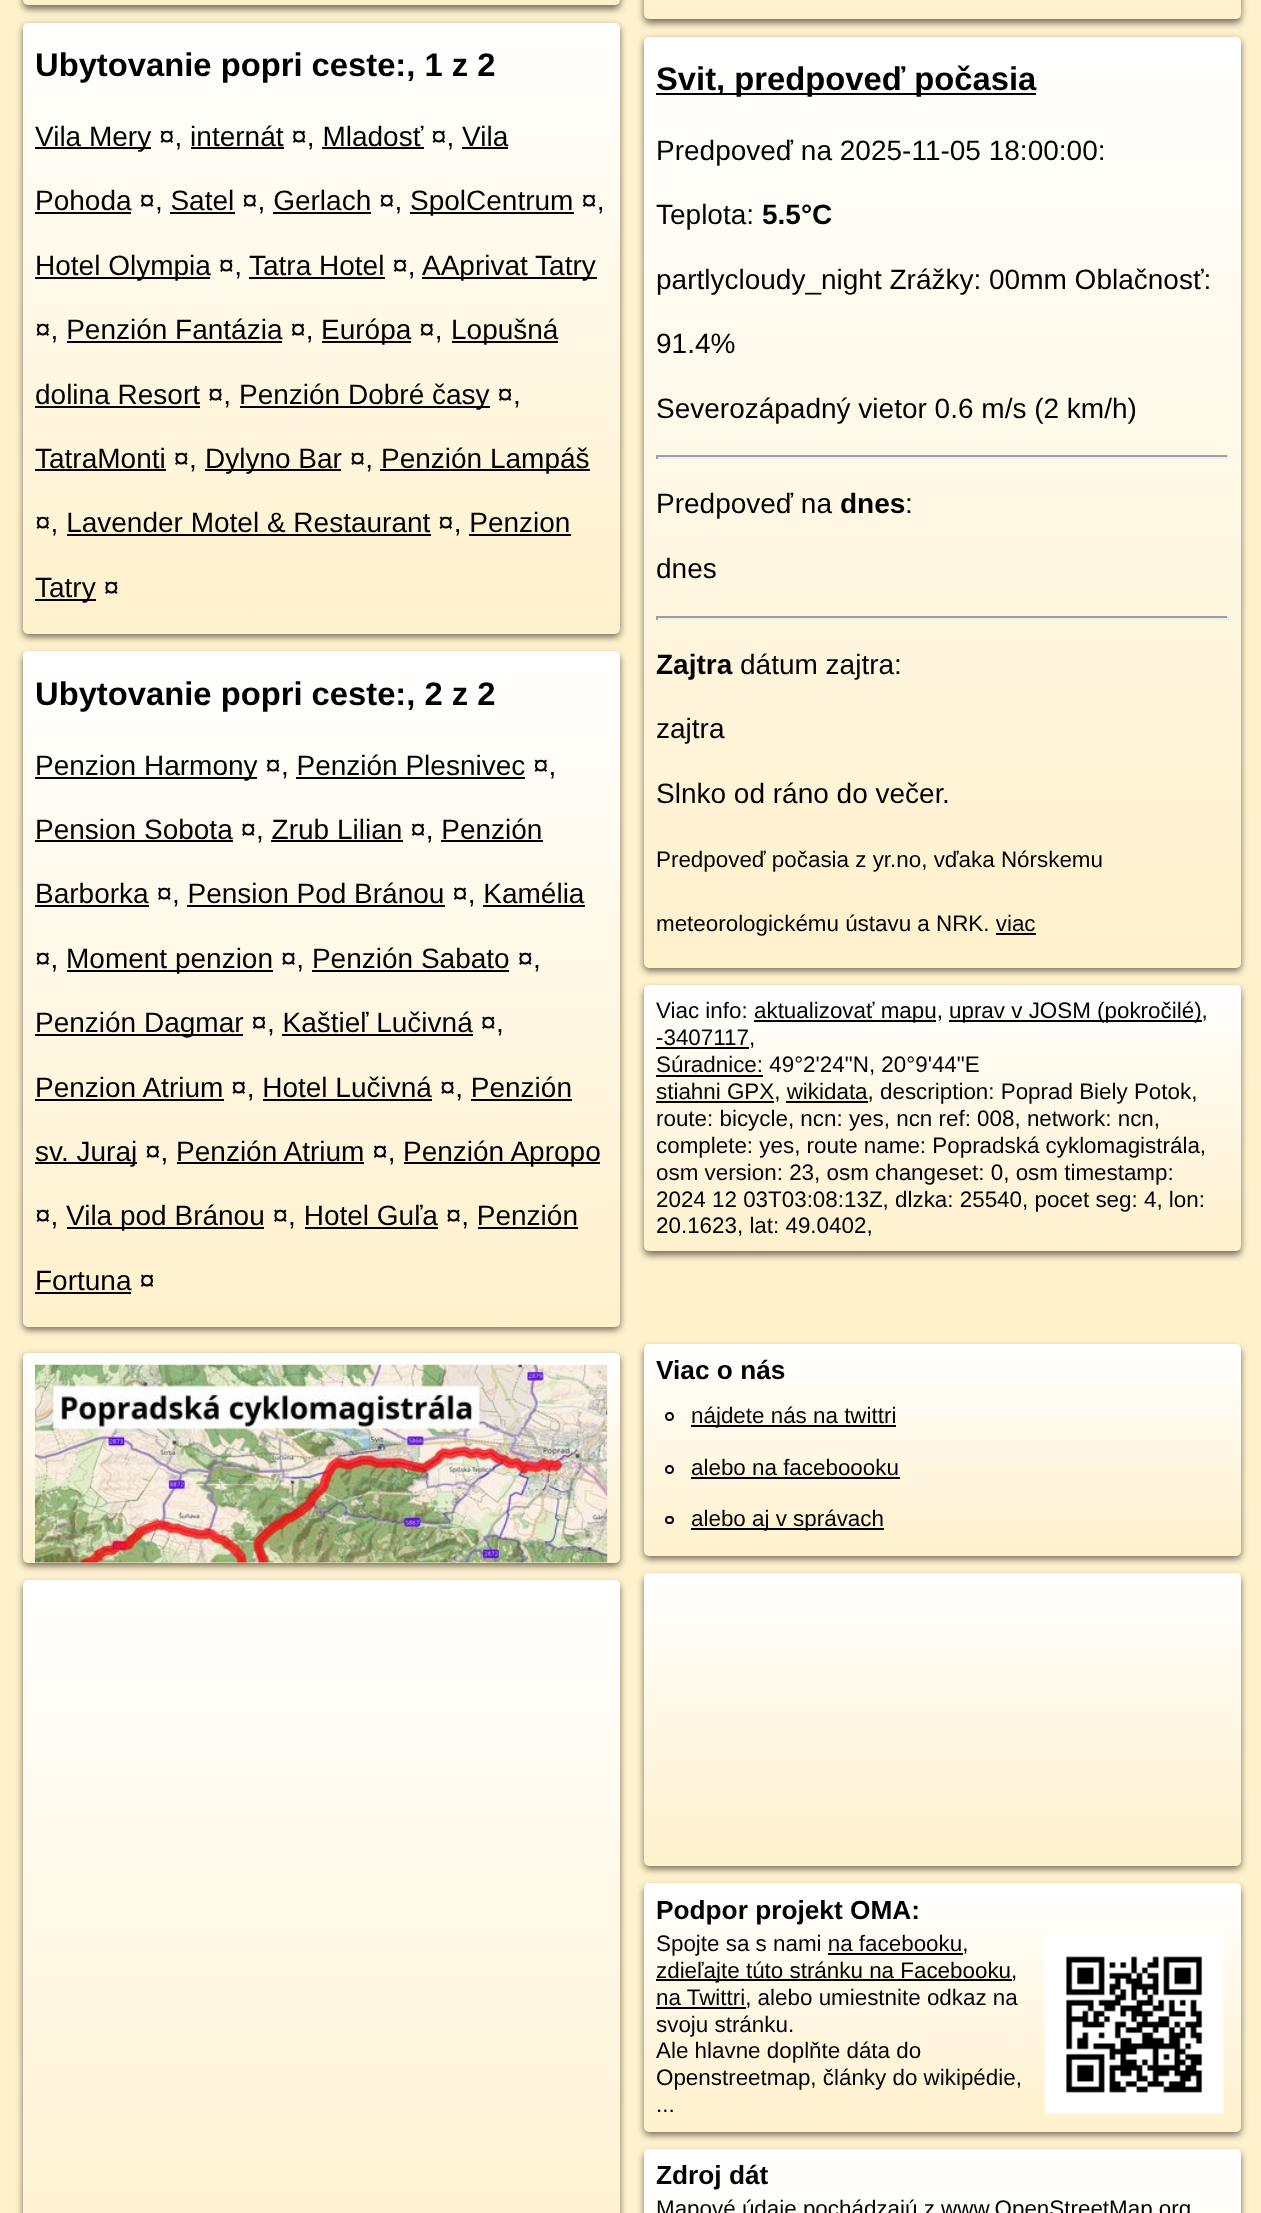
<?xml version="1.0" encoding="UTF-8"?>
<svg xmlns="http://www.w3.org/2000/svg" width="1261" height="2213">
    <defs>
        <filter id="blur1" x="-50%" y="-200%" width="200%" height="500%"><feGaussianBlur stdDeviation="3.5"/></filter>
        <linearGradient id="g1" gradientUnits="userSpaceOnUse" x1="321" y1="-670" x2="321" y2="5.3"><stop offset="0" stop-color="#FFFFFF"/><stop offset="1" stop-color="#FFF1CC"/></linearGradient>
        <linearGradient id="g2" gradientUnits="userSpaceOnUse" x1="942" y1="-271" x2="942" y2="19"><stop offset="0" stop-color="#FFFFFF"/><stop offset="1" stop-color="#FFF1CC"/></linearGradient>
        <linearGradient id="g3" gradientUnits="userSpaceOnUse" x1="321" y1="23" x2="321" y2="634"><stop offset="0" stop-color="#FFFFFF"/><stop offset="1" stop-color="#FFF1CC"/></linearGradient>
        <linearGradient id="g4" gradientUnits="userSpaceOnUse" x1="942" y1="37" x2="942" y2="968"><stop offset="0" stop-color="#FFFFFF"/><stop offset="1" stop-color="#FFF1CC"/></linearGradient>
        <linearGradient id="g5" gradientUnits="userSpaceOnUse" x1="321" y1="651" x2="321" y2="1327"><stop offset="0" stop-color="#FFFFFF"/><stop offset="1" stop-color="#FFF1CC"/></linearGradient>
        <linearGradient id="g6" gradientUnits="userSpaceOnUse" x1="942" y1="985" x2="942" y2="1251"><stop offset="0" stop-color="#FFFFFF"/><stop offset="1" stop-color="#FFF1CC"/></linearGradient>
        <linearGradient id="g7" gradientUnits="userSpaceOnUse" x1="321" y1="1353" x2="321" y2="1563"><stop offset="0" stop-color="#FFFFFF"/><stop offset="1" stop-color="#FFF1CC"/></linearGradient>
        <linearGradient id="g8" gradientUnits="userSpaceOnUse" x1="942" y1="1344" x2="942" y2="1556"><stop offset="0" stop-color="#FFFFFF"/><stop offset="1" stop-color="#FFF1CC"/></linearGradient>
        <linearGradient id="g9" gradientUnits="userSpaceOnUse" x1="321" y1="1580" x2="321" y2="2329"><stop offset="0" stop-color="#FFFFFF"/><stop offset="1" stop-color="#FFF1CC"/></linearGradient>
        <linearGradient id="g10" gradientUnits="userSpaceOnUse" x1="942" y1="1573" x2="942" y2="1866"><stop offset="0" stop-color="#FFFFFF"/><stop offset="1" stop-color="#FFF1CC"/></linearGradient>
        <linearGradient id="g11" gradientUnits="userSpaceOnUse" x1="942" y1="1883" x2="942" y2="2132"><stop offset="0" stop-color="#FFFFFF"/><stop offset="1" stop-color="#FFF1CC"/></linearGradient>
        <linearGradient id="g12" gradientUnits="userSpaceOnUse" x1="942" y1="2149" x2="942" y2="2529"><stop offset="0" stop-color="#FFFFFF"/><stop offset="1" stop-color="#FFF1CC"/></linearGradient>
    </defs>
    <rect width="100%" height="100%" fill="#FFF1CC"/>
    <rect x="23" y="-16" width="597" height="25" rx="5" fill="#000000" fill-opacity="0.55" filter="url(#blur1)"/>
    <rect x="23" y="-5" width="597" height="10" rx="5" fill="url(#g1)"/>
    <rect x="644" y="-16" width="597" height="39" rx="5" fill="#000000" fill-opacity="0.55" filter="url(#blur1)"/>
    <rect x="644" y="-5" width="597" height="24" rx="5" fill="url(#g2)"/>
    <rect x="23" y="26" width="597" height="611" rx="5" fill="#000000" fill-opacity="0.55" filter="url(#blur1)"/>
    <rect x="23" y="23" width="597" height="611" rx="5" fill="url(#g3)"/>
    <text x="35" y="76" font-family="Liberation Sans" font-size="32.75" font-weight="700" fill="#000000">Ubytovanie popri ceste:, 1 z 2</text>
    <rect x="35" y="147" width="116" height="2" fill="#000000"/>
    <text x="35" y="146" font-family="Liberation Sans" font-size="28" fill="#000000">Vila Mery ¤, internát ¤, Mladosť ¤, Vila</text>
    <rect x="191" y="147" width="93" height="2" fill="#000000"/>
    <rect x="322" y="147" width="102" height="2" fill="#000000"/>
    <rect x="35" y="212" width="96" height="2" fill="#000000"/>
    <text x="35" y="210" font-family="Liberation Sans" font-size="28" fill="#000000">Pohoda ¤, Satel ¤, Gerlach ¤,</text>
    <rect x="462" y="147" width="46" height="2" fill="#000000"/>
    <rect x="410" y="212" width="164" height="2" fill="#000000"/>
    <text x="410" y="210" font-family="Liberation Sans" font-size="28" fill="#000000">SpolCentrum ¤,</text>
    <rect x="170" y="212" width="65" height="2" fill="#000000"/>
    <rect x="273" y="212" width="98" height="2" fill="#000000"/>
    <rect x="35" y="277" width="175" height="2" fill="#000000"/>
    <text x="35" y="275" font-family="Liberation Sans" font-size="28" fill="#000000">Hotel Olympia ¤,</text>
    <rect x="249" y="277" width="136" height="2" fill="#000000"/>
    <text x="249" y="275" font-family="Liberation Sans" font-size="28" fill="#000000">Tatra Hotel ¤,</text>
    <rect x="422" y="277" width="175" height="2" fill="#000000"/>
    <text x="422" y="275" font-family="Liberation Sans" font-size="28" fill="#000000">AAprivat Tatry</text>
    <text x="35" y="339" font-family="Liberation Sans" font-size="28" fill="#000000">¤, Penzión Fantázia ¤,</text>
    <rect x="322" y="341" width="89" height="2" fill="#000000"/>
    <text x="321" y="339" font-family="Liberation Sans" font-size="28" fill="#000000">Európa ¤,</text>
    <rect x="452" y="341" width="106" height="2" fill="#000000"/>
    <text x="451" y="339" font-family="Liberation Sans" font-size="28" fill="#000000">Lopušná</text>
    <rect x="67" y="341" width="215" height="2" fill="#000000"/>
    <rect x="35" y="406" width="165" height="2" fill="#000000"/>
    <text x="35" y="404" font-family="Liberation Sans" font-size="28" fill="#000000">dolina Resort ¤,</text>
    <rect x="240" y="406" width="250" height="2" fill="#000000"/>
    <text x="239" y="404" font-family="Liberation Sans" font-size="28" fill="#000000">Penzión Dobré časy ¤,</text>
    <rect x="35" y="469" width="131" height="2" fill="#000000"/>
    <text x="35" y="468" font-family="Liberation Sans" font-size="28" fill="#000000">TatraMonti ¤,</text>
    <rect x="205" y="469" width="136" height="2" fill="#000000"/>
    <text x="205" y="468" font-family="Liberation Sans" font-size="28" fill="#000000">Dylyno Bar ¤,</text>
    <rect x="380" y="469" width="210" height="2" fill="#000000"/>
    <text x="381" y="468" font-family="Liberation Sans" font-size="28" fill="#000000">Penzión Lampáš</text>
    <text x="35" y="532" font-family="Liberation Sans" font-size="28" fill="#000000">¤, Lavender Motel &amp; Restaurant ¤, Penzion</text>
    <rect x="67" y="534" width="364" height="2" fill="#000000"/>
    <rect x="35" y="599" width="61" height="2" fill="#000000"/>
    <text x="35" y="597" font-family="Liberation Sans" font-size="28" fill="#000000">Tatry ¤</text>
    <rect x="469" y="534" width="102" height="2" fill="#000000"/>
    <rect x="644" y="40" width="597" height="931" rx="5" fill="#000000" fill-opacity="0.55" filter="url(#blur1)"/>
    <rect x="644" y="37" width="597" height="931" rx="5" fill="url(#g4)"/>
    <rect x="656" y="93" width="380" height="2" fill="#000000"/>
    <text x="656" y="90" font-family="Liberation Sans" font-size="32.75" font-weight="700" fill="#000000">Svit, predpoveď počasia</text>
    <text x="656" y="160" font-family="Liberation Sans" font-size="28" fill="#000000">Predpoveď na 2025-11-05 18:00:00:</text>
    <text x="656" y="224" font-family="Liberation Sans" font-size="28" fill="#000000">Teplota:</text>
    <text x="762" y="224" font-family="Liberation Sans" font-size="28" font-weight="700" fill="#000000">5.5°C</text>
    <text x="656" y="289" font-family="Liberation Sans" font-size="28" fill="#000000">partlycloudy_night Zrážky: 00mm Oblačnosť:</text>
    <text x="656" y="353" font-family="Liberation Sans" font-size="28" fill="#000000">91.4%</text>
    <text x="656" y="418" font-family="Liberation Sans" font-size="28" fill="#000000">Severozápadný vietor 0.6 m/s (2 km/h)</text>
    <rect x="656" y="455" width="573" height="2" fill="#9F9F9F"/>
    <rect x="1227" y="455" width="2" height="4" fill="#EEEEEE"/>
    <rect x="656" y="457" width="573" height="2" fill="#EEEEEE"/>
    <rect x="656" y="455" width="2" height="4" fill="#9F9F9F"/>
    <text x="656" y="513" font-family="Liberation Sans" font-size="28" fill="#000000">Predpoveď na</text>
    <text x="840" y="513" font-family="Liberation Sans" font-size="28" font-weight="700" fill="#000000">dnes</text>
    <text x="905" y="513" font-family="Liberation Sans" font-size="28" fill="#000000">:</text>
    <text x="656" y="578" font-family="Liberation Sans" font-size="28" fill="#000000">dnes</text>
    <rect x="656" y="616" width="573" height="2" fill="#9F9F9F"/>
    <rect x="1227" y="616" width="2" height="4" fill="#EEEEEE"/>
    <rect x="656" y="618" width="573" height="2" fill="#EEEEEE"/>
    <rect x="656" y="616" width="2" height="4" fill="#9F9F9F"/>
    <text x="656" y="674" font-family="Liberation Sans" font-size="28" font-weight="700" fill="#000000">Zajtra</text>
    <text x="740" y="674" font-family="Liberation Sans" font-size="28" fill="#000000">dátum zajtra:</text>
    <text x="656" y="738" font-family="Liberation Sans" font-size="28" fill="#000000">zajtra</text>
    <text x="656" y="803" font-family="Liberation Sans" font-size="28" fill="#000000">Slnko od ráno do večer</text>
    <text x="942" y="803" font-family="Liberation Sans" font-size="28" fill="#000000">.</text>
    <text x="656" y="867" font-family="Liberation Sans" font-size="22.4" fill="#000000">Predpoveď počasia z yr.no, vďaka Nórskemu</text>
    <text x="656" y="931" font-family="Liberation Sans" font-size="22.4" fill="#000000">meteorologickému ústavu a NRK. viac</text>
    <rect x="996" y="933" width="40" height="2" fill="#000000"/>
    <rect x="23" y="655" width="597" height="675" rx="5" fill="#000000" fill-opacity="0.55" filter="url(#blur1)"/>
    <rect x="23" y="651" width="597" height="676" rx="5" fill="url(#g5)"/>
    <text x="35" y="705" font-family="Liberation Sans" font-size="32.75" font-weight="700" fill="#000000">Ubytovanie popri ceste:, 2 z 2</text>
    <rect x="35" y="777" width="222" height="2" fill="#000000"/>
    <text x="35" y="775" font-family="Liberation Sans" font-size="28" fill="#000000">Penzion Harmony ¤, Penzión Plesnivec ¤,</text>
    <rect x="296" y="777" width="229" height="2" fill="#000000"/>
    <rect x="35" y="840" width="198" height="2" fill="#000000"/>
    <text x="35" y="839" font-family="Liberation Sans" font-size="28" fill="#000000">Pension Sobota ¤, Zrub Lilian ¤, Penzión</text>
    <rect x="271" y="840" width="132" height="2" fill="#000000"/>
    <rect x="35" y="905" width="114" height="2" fill="#000000"/>
    <text x="35" y="903" font-family="Liberation Sans" font-size="28" fill="#000000">Barborka ¤, Pension Pod Bránou ¤, Kamélia</text>
    <rect x="441" y="840" width="102" height="2" fill="#000000"/>
    <rect x="187" y="905" width="258" height="2" fill="#000000"/>
    <rect x="483" y="905" width="102" height="2" fill="#000000"/>
    <text x="35" y="968" font-family="Liberation Sans" font-size="28" fill="#000000">¤,</text>
    <rect x="67" y="970" width="206" height="2" fill="#000000"/>
    <text x="66" y="968" font-family="Liberation Sans" font-size="28" fill="#000000">Moment penzion ¤, Penzión Sabato ¤,</text>
    <rect x="312" y="970" width="197" height="2" fill="#000000"/>
    <rect x="35" y="1034" width="208" height="2" fill="#000000"/>
    <text x="35" y="1032" font-family="Liberation Sans" font-size="28" fill="#000000">Penzión Dagmar ¤, Kaštieľ Lučivná ¤,</text>
    <rect x="282" y="1034" width="191" height="2" fill="#000000"/>
    <rect x="35" y="1099" width="189" height="2" fill="#000000"/>
    <text x="35" y="1097" font-family="Liberation Sans" font-size="28" fill="#000000">Penzion Atrium ¤, Hotel Lučivná ¤, Penzión</text>
    <rect x="263" y="1099" width="169" height="2" fill="#000000"/>
    <rect x="35" y="1162" width="102" height="2" fill="#000000"/>
    <text x="35" y="1161" font-family="Liberation Sans" font-size="28" fill="#000000">sv. Juraj ¤, Penzión Atrium ¤,</text>
    <rect x="471" y="1099" width="101" height="2" fill="#000000"/>
    <rect x="404" y="1162" width="196" height="2" fill="#000000"/>
    <text x="403" y="1161" font-family="Liberation Sans" font-size="28" fill="#000000">Penzión Apropo</text>
    <rect x="177" y="1162" width="187" height="2" fill="#000000"/>
    <text x="35" y="1225" font-family="Liberation Sans" font-size="28" fill="#000000">¤,</text>
    <rect x="67" y="1227" width="197" height="2" fill="#000000"/>
    <text x="66" y="1225" font-family="Liberation Sans" font-size="28" fill="#000000">Vila pod Bránou ¤, Hotel Guľa ¤, Penzión</text>
    <rect x="305" y="1227" width="133" height="2" fill="#000000"/>
    <text x="35" y="1290" font-family="Liberation Sans" font-size="28" fill="#000000">Fortuna ¤</text>
    <rect x="478" y="1227" width="100" height="2" fill="#000000"/>
    <rect x="35" y="1292" width="96" height="2" fill="#000000"/>
    <rect x="644" y="989" width="597" height="266" rx="5" fill="#000000" fill-opacity="0.55" filter="url(#blur1)"/>
    <rect x="644" y="985" width="597" height="266" rx="5" fill="url(#g6)"/>
    <text x="656" y="1018" font-family="Liberation Sans" font-size="22.4" fill="#000000">Viac info:</text>
    <rect x="754" y="1020" width="182" height="2" fill="#000000"/>
    <text x="754" y="1018" font-family="Liberation Sans" font-size="22.4" fill="#000000">aktualizovať mapu,</text>
    <rect x="949" y="1020" width="253" height="2" fill="#000000"/>
    <text x="949" y="1018" font-family="Liberation Sans" font-size="22.4" fill="#000000">uprav v JOSM (pokročilé),</text>
    <rect x="656" y="1047" width="93" height="2" fill="#000000"/>
    <text font-family="Liberation Sans" font-size="22.4" fill="#000000">
        <tspan x="656" y="1045">-3407117,</tspan>
        <tspan x="656" y="1072">Súradnice: 49°2'24"N, 20°9'44"E</tspan>
    </text>
    <rect x="656" y="1075" width="107" height="2" fill="#000000"/>
    <rect x="656" y="1101" width="118" height="2" fill="#000000"/>
    <text x="656" y="1099" font-family="Liberation Sans" font-size="22.4" fill="#000000">stiahni GPX, wikidata, description: Poprad Biely Potok,</text>
    <rect x="786" y="1101" width="82" height="2" fill="#000000"/>
    <text font-family="Liberation Sans" font-size="22.4" fill="#000000">
        <tspan x="656" y="1126">route: bicycle, ncn: yes, ncn ref: 008, network: ncn,</tspan>
        <tspan x="656" y="1153">complete: yes, route name: Popradská cyklomagistrála,</tspan>
        <tspan x="656" y="1180">osm version: 23, osm changeset: 0, osm timestamp:</tspan>
        <tspan x="656" y="1207">2024 12 03T03:08:13Z, dlzka: 25540, pocet seg: 4, lon:</tspan>
        <tspan x="656" y="1233">20.1623, lat: 49.0402,</tspan>
    </text>
    <rect x="23" y="1356" width="597" height="210" rx="5" fill="#000000" fill-opacity="0.55" filter="url(#blur1)"/>
    <rect x="23" y="1353" width="597" height="210" rx="5" fill="url(#g7)"/>
    <image x="35" y="1364" width="573" height="199" href="img_01.png"/>
    <rect x="644" y="1348" width="597" height="211" rx="5" fill="#000000" fill-opacity="0.55" filter="url(#blur1)"/>
    <rect x="644" y="1344" width="597" height="212" rx="5" fill="url(#g8)"/>
    <text x="656" y="1379" font-family="Liberation Sans" font-size="26.25" font-weight="700" fill="#000000">Viac o nás</text>
    <circle cx="669.5" cy="1416.5" r="3.5" fill="none" stroke="#000000" stroke-width="2"/>
    <rect x="691" y="1425" width="205" height="2" fill="#000000"/>
    <text x="691" y="1423" font-family="Liberation Sans" font-size="22.4" fill="#000000">nájdete nás na twittri</text>
    <circle cx="669.5" cy="1469.5" r="3.5" fill="none" stroke="#000000" stroke-width="2"/>
    <text x="691" y="1475" font-family="Liberation Sans" font-size="22.4" fill="#000000">alebo na faceboooku</text>
    <rect x="691" y="1477" width="209" height="2" fill="#000000"/>
    <rect x="666" y="1517" width="7" height="6" rx="3" fill="none" stroke="#000000" stroke-width="2"/>
    <rect x="691" y="1528" width="193" height="2" fill="#000000"/>
    <text x="691" y="1526" font-family="Liberation Sans" font-size="22.4" fill="#000000">alebo aj v správach</text>
    <rect x="23" y="1584" width="597" height="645" rx="5" fill="#000000" fill-opacity="0.55" filter="url(#blur1)"/>
    <rect x="23" y="1580" width="597" height="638" rx="5" fill="url(#g9)"/>
    <rect x="644" y="1577" width="597" height="292" rx="5" fill="#000000" fill-opacity="0.55" filter="url(#blur1)"/>
    <rect x="644" y="1573" width="597" height="293" rx="5" fill="url(#g10)"/>
    <rect x="644" y="1887" width="597" height="248" rx="5" fill="#000000" fill-opacity="0.55" filter="url(#blur1)"/>
    <rect x="644" y="1883" width="597" height="249" rx="5" fill="url(#g11)"/>
    <text x="656" y="1919" font-family="Liberation Sans" font-size="26.25" font-weight="700" fill="#000000">Podpor projekt OMA:</text>
    <text x="656" y="1951" font-family="Liberation Sans" font-size="22.4" fill="#000000">Spojte sa s nami na facebooku,</text>
    <rect x="828" y="1953" width="135" height="2" fill="#000000"/>
    <rect x="656" y="1979" width="356" height="2" fill="#000000"/>
    <text x="656" y="1978" font-family="Liberation Sans" font-size="22.4" fill="#000000">zdieľajte túto stránku na Facebooku,</text>
    <rect x="656" y="2007" width="90" height="2" fill="#000000"/>
    <text font-family="Liberation Sans" font-size="22.4" fill="#000000">
        <tspan x="656" y="2005">na Twittri, alebo umiestnite odkaz na</tspan>
        <tspan x="656" y="2032">svoju stránku.</tspan>
    </text>
    <image x="1044" y="1935" width="180" height="179" href="img_02.png"/>
    <text font-family="Liberation Sans" font-size="22.4" fill="#000000">
        <tspan x="656" y="2058">Ale hlavne doplňte dáta do</tspan>
        <tspan x="656" y="2085">Openstreetmap, články do wikipédie,</tspan>
        <tspan x="656" y="2112">...</tspan>
    </text>
    <rect x="644" y="2153" width="597" height="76" rx="5" fill="#000000" fill-opacity="0.55" filter="url(#blur1)"/>
    <rect x="644" y="2149" width="597" height="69" rx="5" fill="url(#g12)"/>
    <text x="656" y="2184" font-family="Liberation Sans" font-size="26.25" font-weight="700" fill="#000000">Zdroj dát</text>
    <text x="656" y="2216" font-family="Liberation Sans" font-size="22.4" fill="#000000">Mapové údaje pochádzajú z www.OpenStreetMap.org</text>
</svg>
